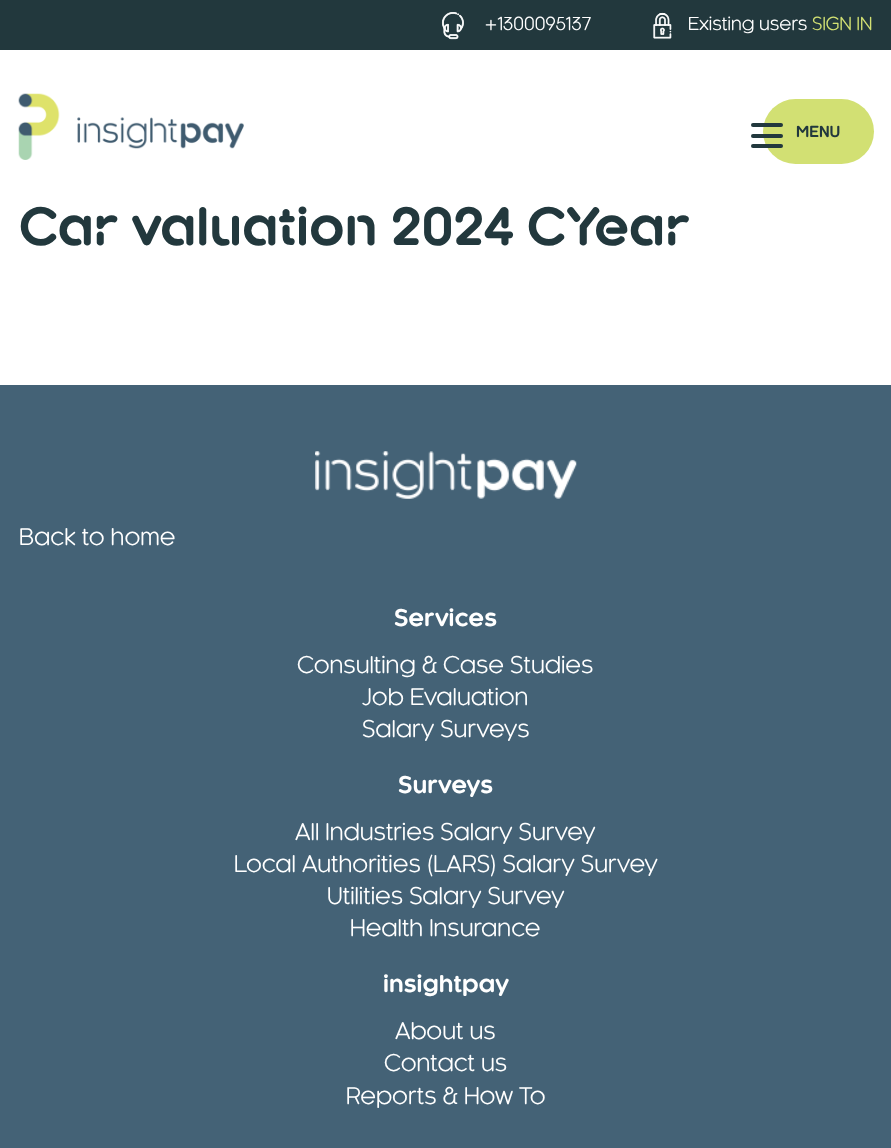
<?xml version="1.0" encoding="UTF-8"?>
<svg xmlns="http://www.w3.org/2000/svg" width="891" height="1148">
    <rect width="100%" height="100%" fill="#FFFFFF"/>
    <rect x="0" y="0" width="891" height="50" fill="#22383D"/>
    <image x="441" y="12" width="23" height="28" href="img_01.png"/>
    <text x="485" y="30" font-family="'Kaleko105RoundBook'" font-size="17.5" fill="#FFFFFF">+1300095137</text>
    <image x="653" y="12" width="19" height="27" href="img_02.png"/>
    <text x="688" y="30" font-family="'Kaleko105RoundBook'" font-size="17.5" fill="#FFFFFF">Existing users</text>
    <text x="812" y="30" font-family="'Kaleko105RoundBook'" font-size="17.5" fill="#D3E173">SIGN IN</text>
    <image x="18" y="93" width="226" height="67" href="img_03.png"/>
    <rect x="763" y="99" width="111" height="65" rx="32.5" fill="#D2E073"/>
    <rect x="751" y="123" width="32" height="4" rx="2" fill="#22383D"/>
    <text x="796" y="137" font-family="'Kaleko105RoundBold'" font-size="15" font-weight="700" fill="#22383D">MENU</text>
    <rect x="751" y="134" width="32" height="4" rx="2" fill="#22383D"/>
    <rect x="751" y="144" width="32" height="4" rx="2" fill="#22383D"/>
    <text x="19" y="245" font-family="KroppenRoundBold" font-size="50" font-weight="700" fill="#22383D">Car valuation 2024 CYear</text>
    <rect x="0" y="385" width="891" height="763" fill="#446276"/>
    <image x="315" y="451" width="262" height="48" href="img_04.png"/>
    <text x="19" y="545" font-family="'Kaleko105RoundBook'" font-size="22.5" fill="#FFFFFF">Back to home</text>
    <text x="394" y="626" font-family="'Kaleko105RoundBold'" font-size="22.5" font-weight="700" fill="#FFFFFF">Services</text>
    <text x="297" y="673" font-family="'Kaleko105RoundBook'" font-size="22.5" fill="#FFFFFF">Consulting &amp; Case Studies</text>
    <text font-family="'Kaleko105RoundBook'" font-size="22.5" fill="#FFFFFF">
        <tspan x="362" y="705">Job Evaluation</tspan>
        <tspan x="362" y="737">Salary Surveys</tspan>
    </text>
    <text x="398" y="793" font-family="'Kaleko105RoundBold'" font-size="22.5" font-weight="700" fill="#FFFFFF">Surveys</text>
    <text x="295" y="840" font-family="'Kaleko105RoundBook'" font-size="22.5" fill="#FFFFFF">All Industries Salary Survey</text>
    <text x="234" y="872" font-family="'Kaleko105RoundBook'" font-size="22.5" fill="#FFFFFF">Local Authorities (LARS) Salary Survey</text>
    <text x="327" y="904" font-family="'Kaleko105RoundBook'" font-size="22.5" fill="#FFFFFF">Utilities Salary Survey</text>
    <text x="350" y="936" font-family="'Kaleko105RoundBook'" font-size="22.5" fill="#FFFFFF">Health Insurance</text>
    <text x="383" y="992" font-family="'Kaleko105RoundBold'" font-size="22.5" font-weight="700" fill="#FFFFFF">insightpay</text>
    <text x="395" y="1039" font-family="'Kaleko105RoundBook'" font-size="22.5" fill="#FFFFFF">About us</text>
    <text x="384" y="1071" font-family="'Kaleko105RoundBook'" font-size="22.5" fill="#FFFFFF">Contact us</text>
    <text x="346" y="1104" font-family="'Kaleko105RoundBook'" font-size="22.5" fill="#FFFFFF">Reports &amp; How To</text>
</svg>
